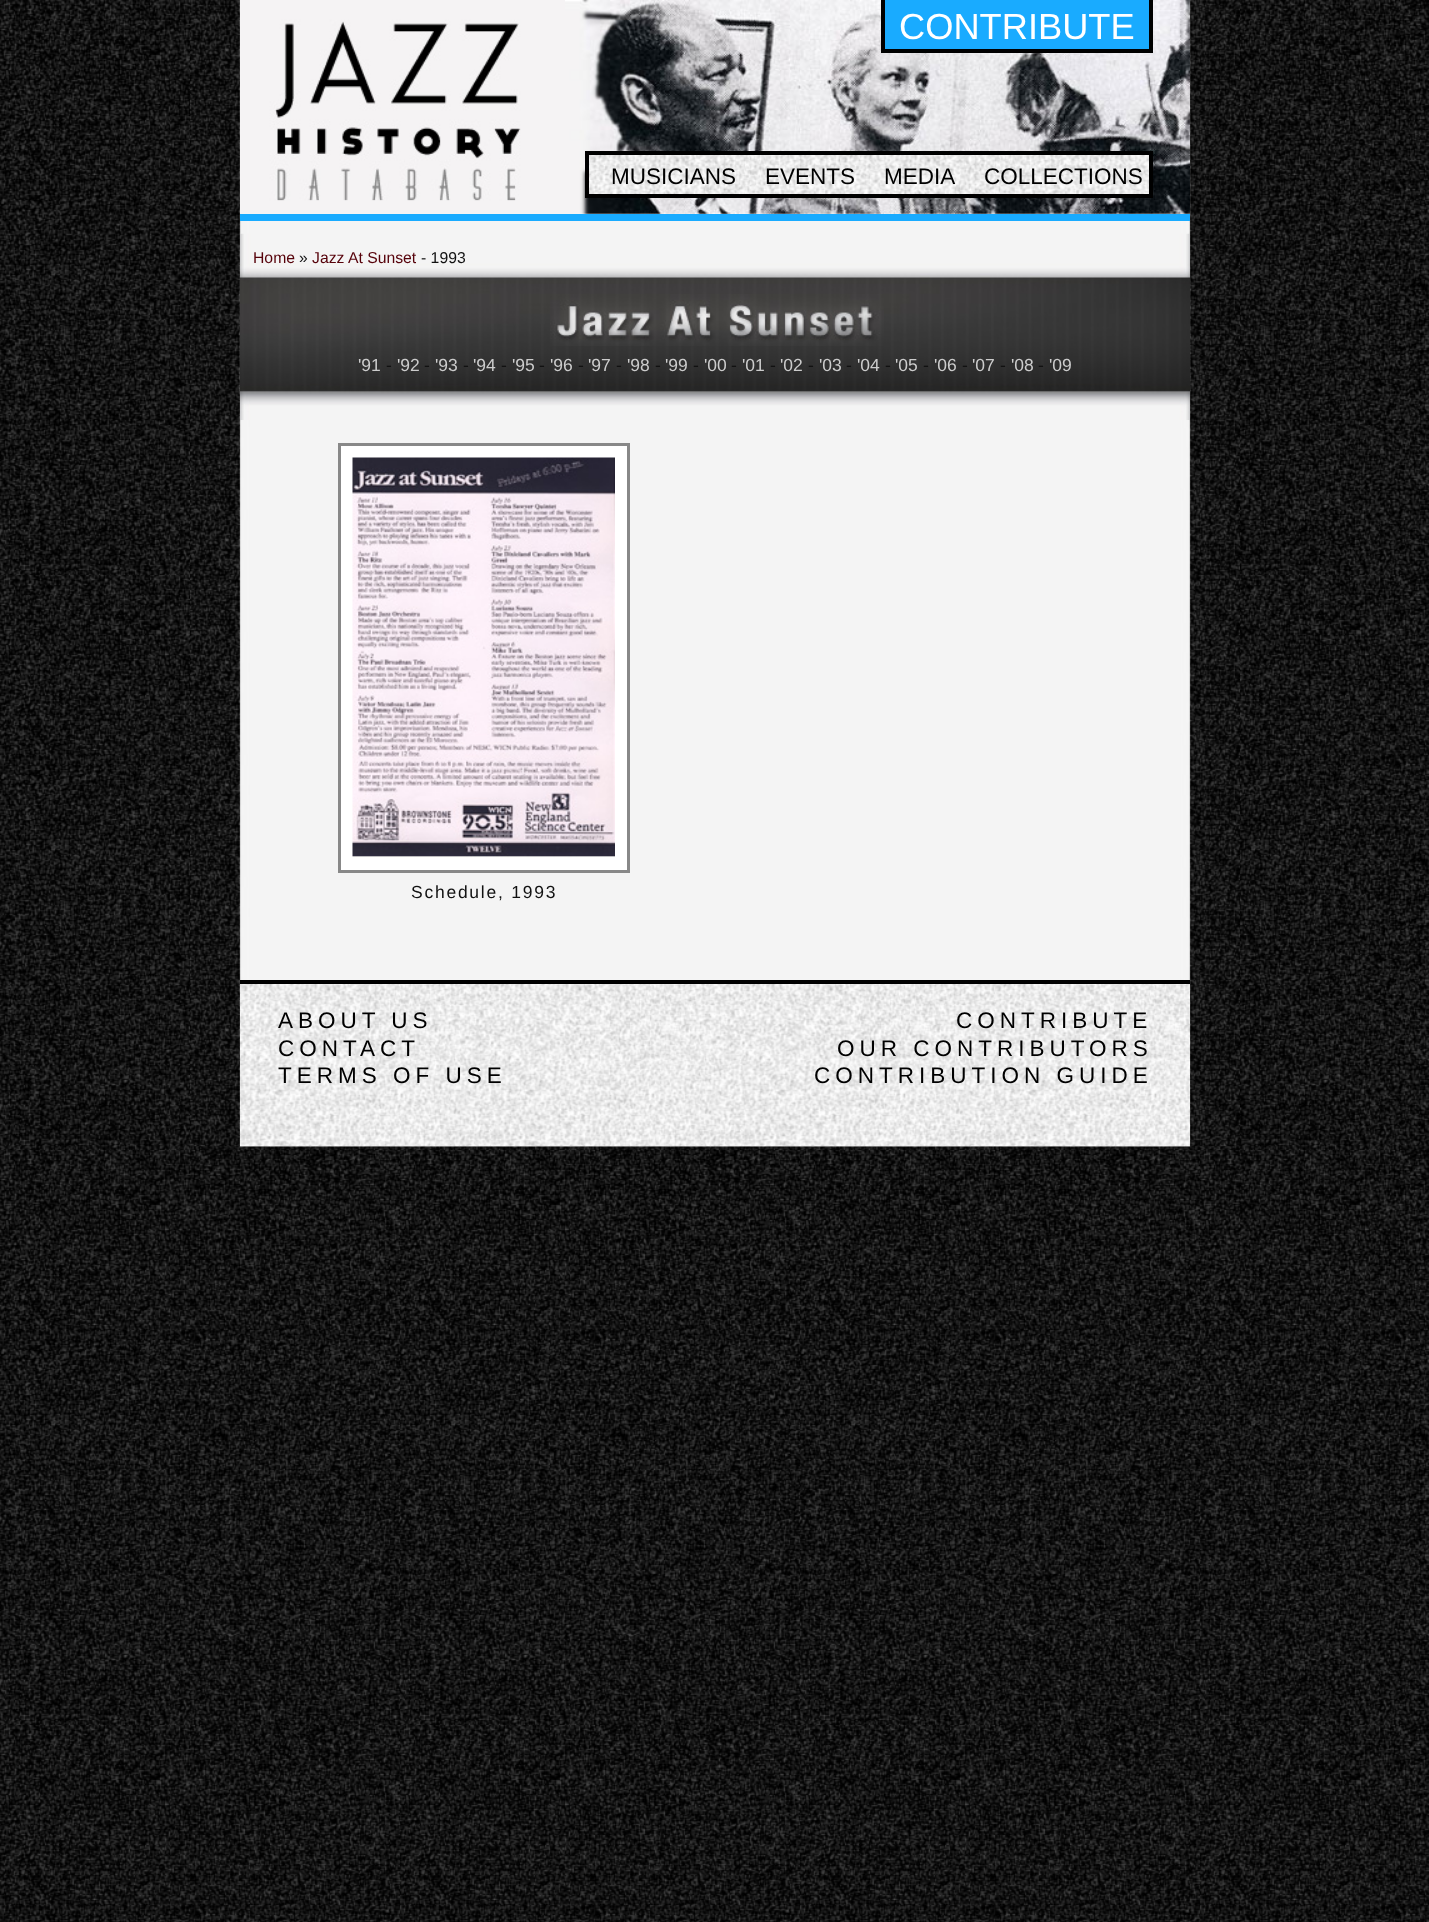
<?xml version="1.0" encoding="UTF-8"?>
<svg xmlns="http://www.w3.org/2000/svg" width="1429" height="1922">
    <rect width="100%" height="100%" fill="#FFFFFF"/>
    <image x="0" y="0" width="1429" height="1922" href="img_01.png"/>
    <image x="190" y="0" width="1050" height="1147" href="img_02.png"/>
    <image x="240" y="0" width="950" height="214" href="img_03.png"/>
    <rect x="240" y="214" width="950" height="7" fill="#19ABFF"/>
    <image x="240" y="0" width="325" height="214" href="img_04.png"/>
    <rect x="885" y="0" width="264" height="49" fill="#19ABFF"/>
    <rect x="1149" y="0" width="4" height="53" fill="#000000"/>
    <rect x="881" y="49" width="272" height="4" fill="#000000"/>
    <rect x="881" y="0" width="4" height="53" fill="#000000"/>
    <text x="899" y="39" font-family="Liberation Sans" font-size="36.25" fill="#FFFFFF">CONTRIBUTE</text>
    <image x="589" y="155" width="560" height="39" href="img_05.png"/>
    <rect x="587" y="153" width="564" height="43" fill="none" stroke="#000000" stroke-width="4"/>
    <text x="611" y="184" font-family="Liberation Sans" font-size="22.5" fill="#000000">MUSICIANS</text>
    <text x="765" y="184" font-family="Liberation Sans" font-size="22.5" fill="#000000">EVENTS</text>
    <text x="884" y="184" font-family="Liberation Sans" font-size="22.5" fill="#000000">MEDIA</text>
    <text x="984" y="184" font-family="Liberation Sans" font-size="22.5" fill="#000000">COLLECTIONS</text>
    <image x="240" y="233" width="950" height="187" href="img_06.png"/>
    <text x="253" y="263" font-family="Liberation Sans" font-size="15.75" fill="#56020A">Home</text>
    <text x="299" y="263" font-family="Liberation Sans" font-size="15.75" fill="#111111">»</text>
    <text x="312" y="263" font-family="Liberation Sans" font-size="15.75" fill="#56020A">Jazz At Sunset</text>
    <text x="421" y="263" font-family="Liberation Sans" font-size="15.75" fill="#111111">- 1993</text>
    <image x="550" y="294" width="334" height="52" href="img_07.png"/>
    <text x="358" y="371" font-family="Liberation Sans" font-size="17.5" fill="#CCCCCC">'91</text>
    <text x="386" y="371" font-family="Liberation Sans" font-size="17.5" fill="#111111">-</text>
    <text x="397" y="371" font-family="Liberation Sans" font-size="17.5" fill="#CCCCCC">'92</text>
    <text x="424" y="371" font-family="Liberation Sans" font-size="17.5" fill="#111111">-</text>
    <text x="435" y="371" font-family="Liberation Sans" font-size="17.5" fill="#CCCCCC">'93</text>
    <text x="463" y="371" font-family="Liberation Sans" font-size="17.5" fill="#111111">-</text>
    <text x="473" y="371" font-family="Liberation Sans" font-size="17.5" fill="#CCCCCC">'94</text>
    <text x="501" y="371" font-family="Liberation Sans" font-size="17.5" fill="#111111">-</text>
    <text x="512" y="371" font-family="Liberation Sans" font-size="17.5" fill="#CCCCCC">'95</text>
    <text x="539" y="371" font-family="Liberation Sans" font-size="17.5" fill="#111111">-</text>
    <text x="550" y="371" font-family="Liberation Sans" font-size="17.5" fill="#CCCCCC">'96</text>
    <text x="578" y="371" font-family="Liberation Sans" font-size="17.5" fill="#111111">-</text>
    <text x="588" y="371" font-family="Liberation Sans" font-size="17.5" fill="#CCCCCC">'97</text>
    <text x="616" y="371" font-family="Liberation Sans" font-size="17.5" fill="#111111">-</text>
    <text x="627" y="371" font-family="Liberation Sans" font-size="17.5" fill="#CCCCCC">'98</text>
    <text x="655" y="371" font-family="Liberation Sans" font-size="17.5" fill="#111111">-</text>
    <text x="665" y="371" font-family="Liberation Sans" font-size="17.5" fill="#CCCCCC">'99</text>
    <text x="693" y="371" font-family="Liberation Sans" font-size="17.5" fill="#111111">-</text>
    <text x="704" y="371" font-family="Liberation Sans" font-size="17.5" fill="#CCCCCC">'00</text>
    <text x="731" y="371" font-family="Liberation Sans" font-size="17.5" fill="#111111">-</text>
    <text x="742" y="371" font-family="Liberation Sans" font-size="17.5" fill="#CCCCCC">'01</text>
    <text x="770" y="371" font-family="Liberation Sans" font-size="17.5" fill="#111111">-</text>
    <text x="780" y="371" font-family="Liberation Sans" font-size="17.5" fill="#CCCCCC">'02</text>
    <text x="808" y="371" font-family="Liberation Sans" font-size="17.5" fill="#111111">-</text>
    <text x="819" y="371" font-family="Liberation Sans" font-size="17.5" fill="#CCCCCC">'03</text>
    <text x="846" y="371" font-family="Liberation Sans" font-size="17.5" fill="#111111">-</text>
    <text x="857" y="371" font-family="Liberation Sans" font-size="17.5" fill="#CCCCCC">'04</text>
    <text x="885" y="371" font-family="Liberation Sans" font-size="17.5" fill="#111111">-</text>
    <text x="895" y="371" font-family="Liberation Sans" font-size="17.5" fill="#CCCCCC">'05</text>
    <text x="923" y="371" font-family="Liberation Sans" font-size="17.5" fill="#111111">-</text>
    <text x="934" y="371" font-family="Liberation Sans" font-size="17.5" fill="#CCCCCC">'06</text>
    <text x="962" y="371" font-family="Liberation Sans" font-size="17.5" fill="#111111">-</text>
    <text x="972" y="371" font-family="Liberation Sans" font-size="17.5" fill="#CCCCCC">'07</text>
    <text x="1000" y="371" font-family="Liberation Sans" font-size="17.5" fill="#111111">-</text>
    <text x="1011" y="371" font-family="Liberation Sans" font-size="17.5" fill="#CCCCCC">'08</text>
    <text x="1038" y="371" font-family="Liberation Sans" font-size="17.5" fill="#111111">-</text>
    <text x="1049" y="371" font-family="Liberation Sans" font-size="17.5" fill="#CCCCCC">'09</text>
    <rect x="339.5" y="444.5" width="289" height="427" fill="#FFFFFF" stroke="#888888" stroke-width="3"/>
    <image x="352" y="457" width="263" height="401" href="img_08.png"/>
    <text x="411" y="898" font-family="Liberation Sans" font-size="17.5" letter-spacing="1.75" fill="#111111">Schedule, 1993</text>
    <image x="240" y="984" width="950" height="163" href="img_09.png"/>
    <rect x="240" y="980" width="950" height="4" fill="#000000"/>
    <text font-family="Liberation Sans" font-size="22.5" letter-spacing="5" fill="#000000">
        <tspan x="278" y="1028">ABOUT US</tspan>
        <tspan x="278" y="1056">CONTACT</tspan>
        <tspan x="278" y="1083">TERMS OF USE</tspan>
    </text>
    <text x="956" y="1028" font-family="Liberation Sans" font-size="22.5" letter-spacing="5" fill="#000000">CONTRIBUTE</text>
    <text x="837" y="1056" font-family="Liberation Sans" font-size="22.5" letter-spacing="5" fill="#000000">OUR CONTRIBUTORS</text>
    <text x="814" y="1083" font-family="Liberation Sans" font-size="22.5" letter-spacing="5" fill="#000000">CONTRIBUTION GUIDE</text>
</svg>
